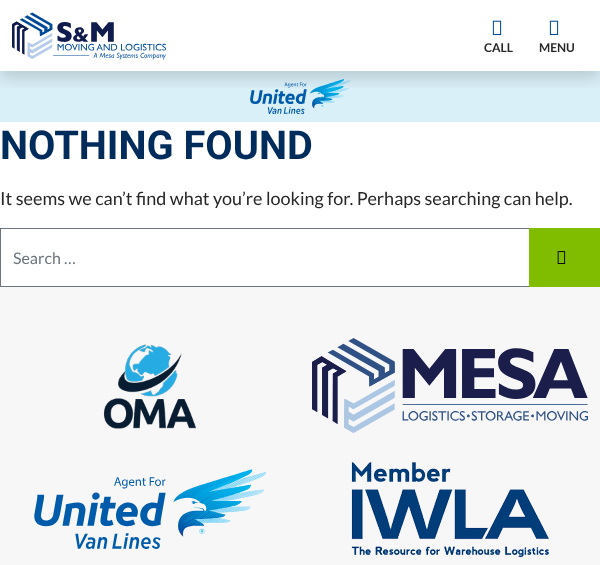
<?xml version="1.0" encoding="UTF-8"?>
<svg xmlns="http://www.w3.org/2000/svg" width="600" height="565">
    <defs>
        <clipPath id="clip1"><rect x="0" y="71" width="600" height="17"/></clipPath>
        <filter id="blur1" x="-50%" y="-200%" width="200%" height="500%"><feGaussianBlur stdDeviation="8"/></filter>
    </defs>
    <rect width="100%" height="100%" fill="#FFFFFF"/>
    <rect x="0" y="71" width="600" height="51" fill="#DAF0F9"/>
    <image x="250" y="79" width="100" height="35" href="img_03.png"/>
    <g clip-path="url(#clip1)">
        <rect x="0" y="8" width="600" height="71" fill="#000000" fill-opacity="0.15" filter="url(#blur1)"/>
    </g>
    <image x="12" y="12" width="154" height="48" href="img_01.png"/>
    <image x="492" y="20" width="10" height="15" href="img_02.png"/>
    <text x="484" y="52" font-family="Lato" font-size="12" font-weight="700" fill="#272727">CALL</text>
    <image x="549" y="20" width="10" height="15" href="img_02.png"/>
    <text x="539" y="52" font-family="Lato" font-size="12" font-weight="700" fill="#272727">MENU</text>
    <text x="0" y="159" font-family="Roboto" font-size="39.75" font-weight="700" fill="#002C5B">NOTHING FOUND</text>
    <text x="0" y="205" font-family="Lato" font-size="18" fill="#272727">It seems we can’t find what you’re looking for. Perhaps searching can help.</text>
    <rect x="0.5" y="228.5" width="529" height="58" fill="none" stroke="#6C757D"/>
    <text x="13" y="264" font-family="Lato" font-size="16" fill="#6C757D">Search …</text>
    <rect x="529" y="228" width="71" height="59" fill="#80BC00"/>
    <image x="557" y="251" width="9" height="13" href="img_04.png"/>
    <rect x="0" y="287" width="600" height="278" fill="#F7F7F7"/>
    <image x="103" y="344" width="93" height="85" href="img_05.png"/>
    <image x="312" y="338" width="276" height="95" href="img_06.png"/>
    <image x="34" y="469" width="232" height="80" href="img_07.png"/>
    <image x="351" y="462" width="198" height="96" href="img_08.png"/>
</svg>
